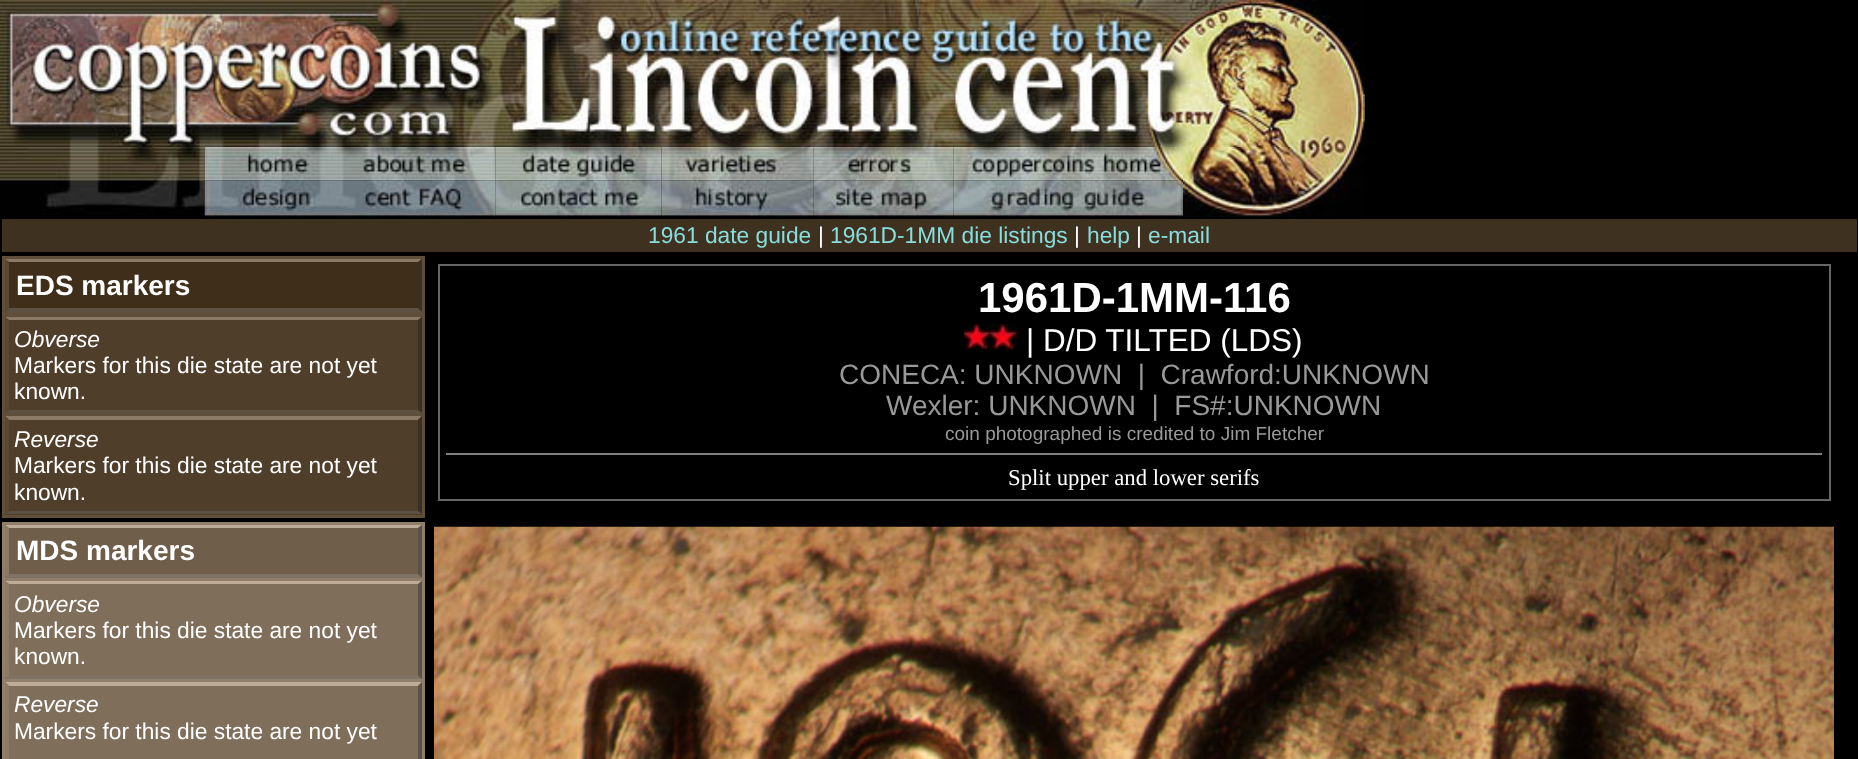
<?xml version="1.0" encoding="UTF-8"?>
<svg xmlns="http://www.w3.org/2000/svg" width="1858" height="759">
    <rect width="100%" height="100%" fill="#000000"/>
    <image x="0" y="0" width="1365" height="147" href="img_01.png"/>
    <image x="0" y="147" width="205" height="68" href="img_02.png"/>
    <image x="204" y="147" width="132" height="34" href="img_03.png"/>
    <image x="336" y="147" width="160" height="34" href="img_04.png"/>
    <image x="495" y="147" width="167" height="34" href="img_05.png"/>
    <image x="661" y="147" width="153" height="34" href="img_06.png"/>
    <image x="813" y="147" width="141" height="34" href="img_07.png"/>
    <image x="953" y="147" width="230" height="34" href="img_08.png"/>
    <image x="1183" y="147" width="181" height="70" href="img_09.png"/>
    <image x="204" y="180" width="132" height="37" href="img_10.png"/>
    <image x="336" y="180" width="160" height="37" href="img_11.png"/>
    <image x="495" y="180" width="167" height="37" href="img_12.png"/>
    <image x="661" y="180" width="153" height="37" href="img_13.png"/>
    <image x="813" y="180" width="141" height="37" href="img_14.png"/>
    <image x="953" y="180" width="230" height="37" href="img_15.png"/>
    <rect x="2" y="219" width="1855" height="33" fill="#3F3120"/>
    <text x="648" y="243" font-family="Liberation Sans" font-size="22.75" fill="#88DDDD">1961 date guide</text>
    <text x="818" y="243" font-family="Liberation Sans" font-size="22.75" fill="#FFFFFF">|</text>
    <text x="830" y="243" font-family="Liberation Sans" font-size="22.75" fill="#88DDDD">1961D-1MM die listings</text>
    <text x="1074" y="243" font-family="Liberation Sans" font-size="22.75" fill="#FFFFFF">|</text>
    <text x="1087" y="243" font-family="Liberation Sans" font-size="22.75" fill="#88DDDD">help</text>
    <text x="1136" y="243" font-family="Liberation Sans" font-size="22.75" fill="#FFFFFF">|</text>
    <text x="1148" y="243" font-family="Liberation Sans" font-size="22.75" fill="#88DDDD">e-mail</text>
    <rect x="2" y="256" width="423" height="262" fill="#5F4E3A"/>
    <rect x="5" y="259" width="417" height="53" fill="#3F2E1A"/>
    <path d="M 5 259 H 422 L 418 262 H 9 Z" fill="#8B7A66"/>
    <path d="M 422 259 V 312 L 418 308 V 262 Z" fill="#3B3023"/>
    <path d="M 422 312 H 5 L 9 308 H 418 Z" fill="#5D5144"/>
    <path d="M 5 312 V 259 L 9 262 V 308 Z" fill="#594834"/>
    <text x="16" y="295" font-family="Liberation Sans" font-size="28" font-weight="700" fill="#FFFFFF">EDS markers</text>
    <rect x="5" y="317" width="417" height="96" fill="#4F3E2A"/>
    <path d="M 5 317 H 422 L 418 320 H 9 Z" fill="#8B7A66"/>
    <path d="M 422 317 V 413 L 418 410 V 320 Z" fill="#3B3023"/>
    <path d="M 422 413 H 5 L 9 410 H 418 Z" fill="#5D5144"/>
    <path d="M 5 413 V 317 L 9 320 V 410 Z" fill="#594834"/>
    <text x="14" y="347" font-family="Liberation Sans" font-size="22.75" font-style="italic" fill="#FFFFFF">Obverse</text>
    <text font-family="Liberation Sans" font-size="22.75" fill="#FFFFFF">
        <tspan x="14" y="373">Markers for this die state are not yet</tspan>
        <tspan x="14" y="399">known.</tspan>
    </text>
    <rect x="5" y="417" width="417" height="98" fill="#4F3E2A"/>
    <path d="M 5 416 H 422 L 418 420 H 9 Z" fill="#8B7A66"/>
    <path d="M 422 416 V 514 L 418 511 V 420 Z" fill="#3B3023"/>
    <path d="M 422 514 H 5 L 9 511 H 418 Z" fill="#5D5144"/>
    <path d="M 5 514 V 416 L 9 420 V 511 Z" fill="#594834"/>
    <text x="14" y="447" font-family="Liberation Sans" font-size="22.75" font-style="italic" fill="#FFFFFF">Reverse</text>
    <text font-family="Liberation Sans" font-size="22.75" fill="#FFFFFF">
        <tspan x="14" y="473">Markers for this die state are not yet</tspan>
        <tspan x="14" y="500">known.</tspan>
    </text>
    <rect x="2" y="522" width="423" height="237" fill="#8F7E6A"/>
    <rect x="5" y="525" width="417" height="53" fill="#6F5E4A"/>
    <path d="M 5 525 H 422 L 418 528 H 9 Z" fill="#BDAC98"/>
    <path d="M 422 525 V 578 L 418 574 V 528 Z" fill="#5D5144"/>
    <path d="M 422 578 H 5 L 9 574 H 418 Z" fill="#7E7365"/>
    <path d="M 5 578 V 525 L 9 528 V 574 Z" fill="#8B7A66"/>
    <text x="16" y="560" font-family="Liberation Sans" font-size="28" font-weight="700" fill="#FFFFFF">MDS markers</text>
    <rect x="5" y="581" width="417" height="98" fill="#7F6E5A"/>
    <path d="M 5 581 H 422 L 418 584 H 9 Z" fill="#BDAC98"/>
    <path d="M 422 581 V 679 L 418 676 V 584 Z" fill="#5D5144"/>
    <path d="M 422 679 H 5 L 9 676 H 418 Z" fill="#7E7365"/>
    <path d="M 5 679 V 581 L 9 584 V 676 Z" fill="#8B7A66"/>
    <text x="14" y="612" font-family="Liberation Sans" font-size="22.75" font-style="italic" fill="#FFFFFF">Obverse</text>
    <text font-family="Liberation Sans" font-size="22.75" fill="#FFFFFF">
        <tspan x="14" y="638">Markers for this die state are not yet</tspan>
        <tspan x="14" y="664">known.</tspan>
    </text>
    <rect x="6" y="683" width="415" height="76" fill="#7F6E5A"/>
    <path d="M 5 682 H 422 L 418 686 H 9 Z" fill="#BDAC98"/>
    <path d="M 422 682 V 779 L 418 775 V 686 Z" fill="#5D5144"/>
    <path d="M 5 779 V 682 L 9 686 V 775 Z" fill="#8B7A66"/>
    <text x="14" y="712" font-family="Liberation Sans" font-size="22.75" font-style="italic" fill="#FFFFFF">Reverse</text>
    <text x="14" y="739" font-family="Liberation Sans" font-size="22.75" fill="#FFFFFF">Markers for this die state are not yet</text>
    <rect x="439" y="265" width="1391" height="235" fill="none" stroke="#666666" stroke-width="2"/>
    <text x="978" y="312" font-family="Liberation Sans" font-size="42" font-weight="700" fill="#FFFFFF">1961D-1MM-116</text>
    <image x="964" y="323" width="53" height="27" href="img_16.png"/>
    <text x="1026" y="351" font-family="Liberation Sans" font-size="31.5" fill="#FFFFFF">| D/D TILTED (LDS)</text>
    <text x="839" y="384" font-family="Liberation Sans" font-size="28" fill="#999999" xml:space="preserve">CONECA: UNKNOWN  |  Crawford:UNKNOWN</text>
    <text x="886" y="415" font-family="Liberation Sans" font-size="28" fill="#999999" xml:space="preserve">Wexler: UNKNOWN  |  FS#:UNKNOWN</text>
    <text x="945" y="440" font-family="Liberation Sans" font-size="19" fill="#999999">coin photographed is credited to Jim Fletcher</text>
    <rect x="446" y="453" width="1376" height="2" fill="#808080"/>
    <text x="1008" y="485" font-family="Liberation Serif" font-size="22.75" fill="#FFFFFF">Split upper and lower serifs</text>
    <image x="434" y="526" width="1400" height="233" href="img_17.png"/>
</svg>
